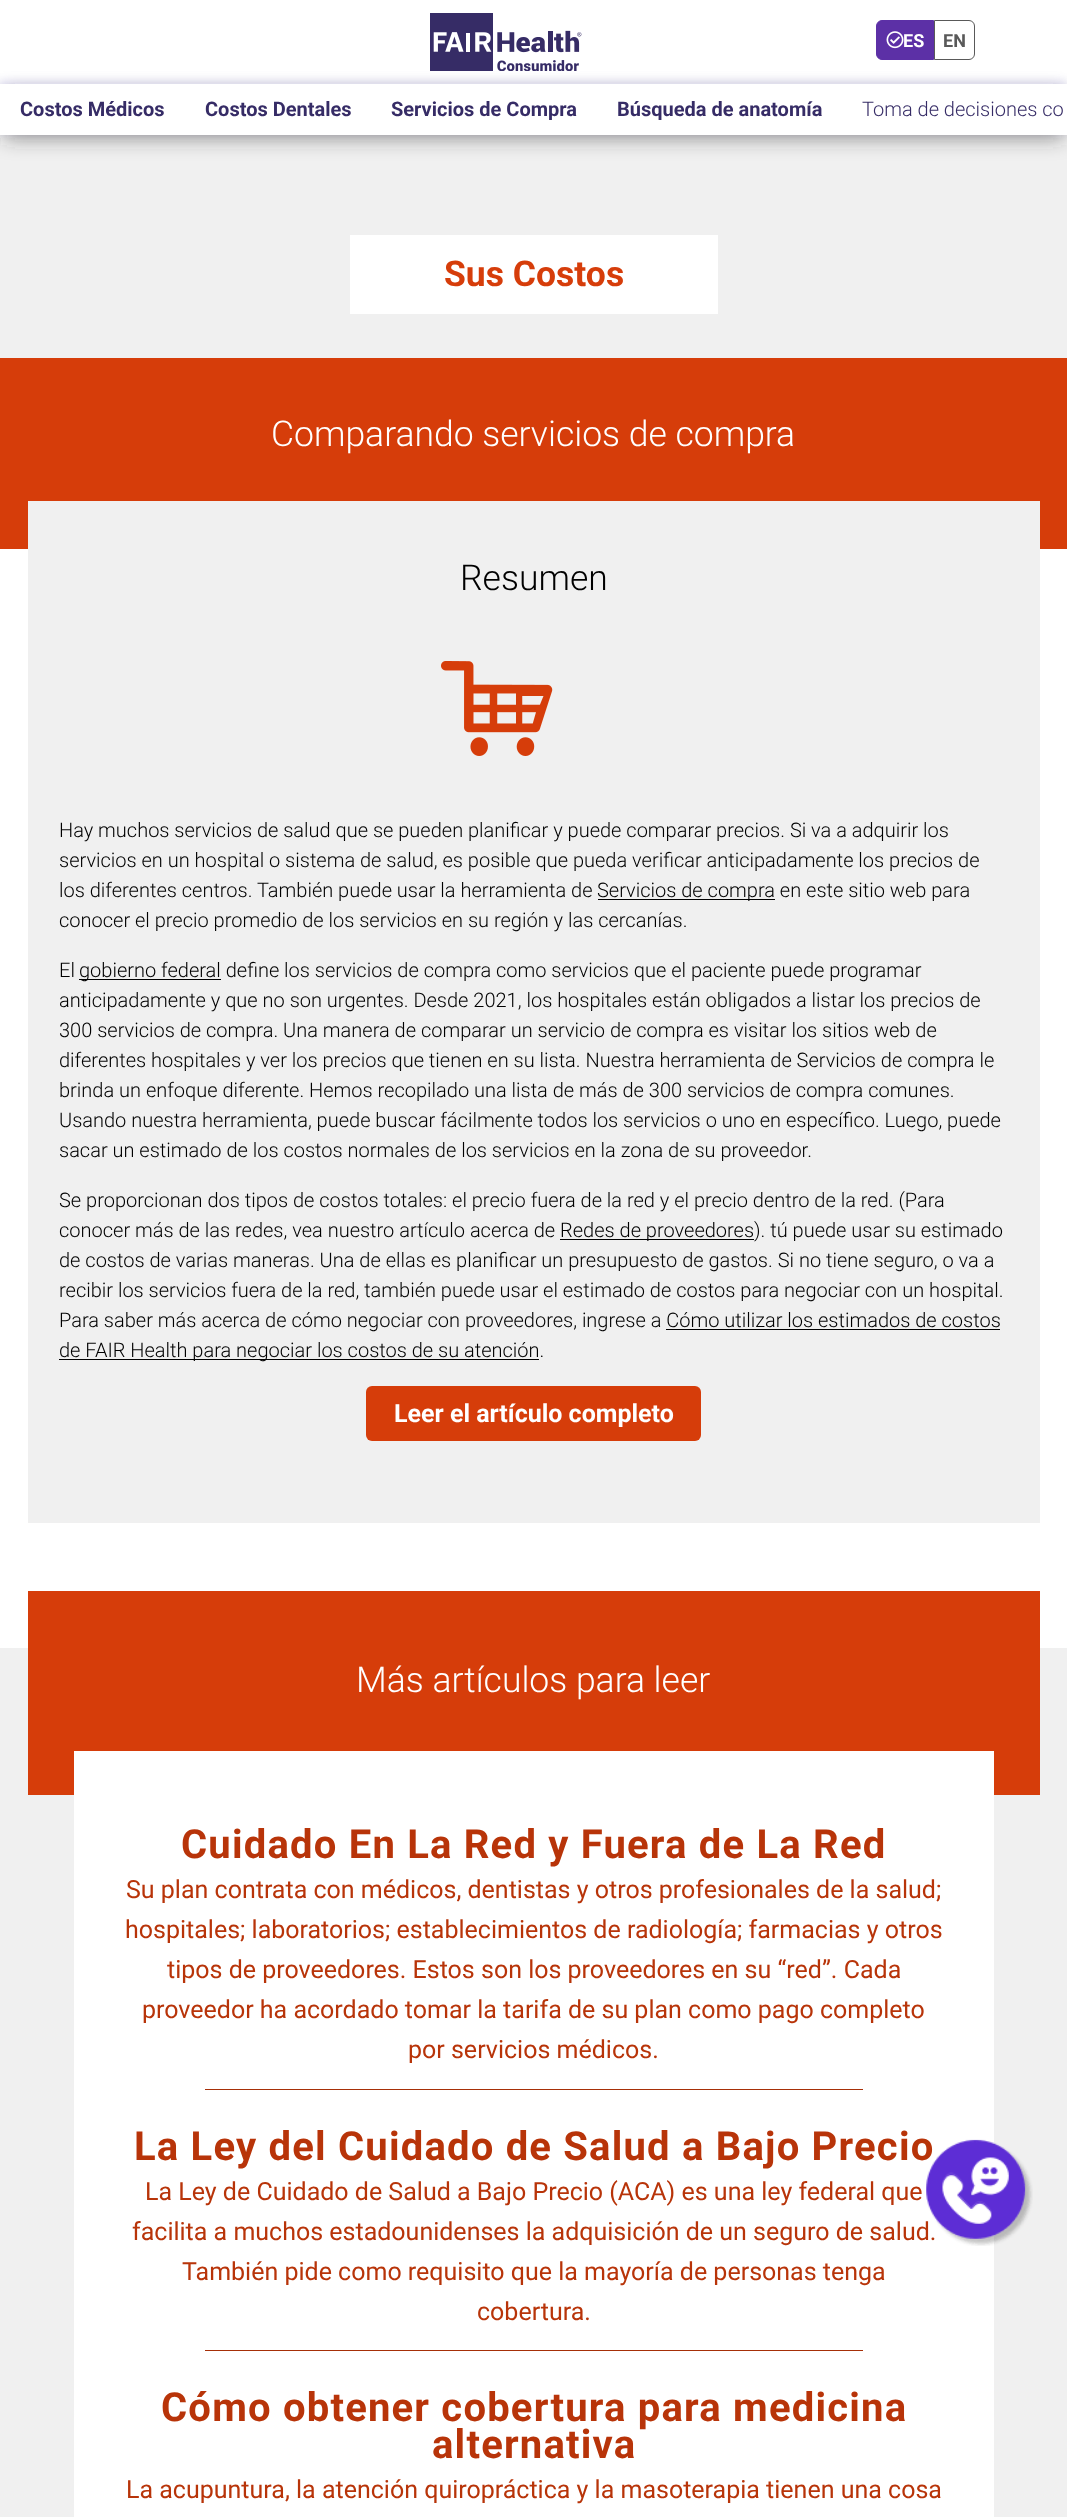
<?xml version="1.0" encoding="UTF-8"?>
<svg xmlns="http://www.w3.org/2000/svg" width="1067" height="2517">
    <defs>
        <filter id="blur1" x="-50%" y="-200%" width="200%" height="500%"><feGaussianBlur stdDeviation="4"/></filter>
        <filter id="blur2" x="-50%" y="-200%" width="200%" height="500%"><feGaussianBlur stdDeviation="10"/></filter>
    </defs>
    <rect width="100%" height="100%" fill="#F0F0F0"/>
    <rect x="0" y="0" width="1067" height="84" fill="#FFFFFF"/>
    <image x="430" y="13" width="152" height="58" href="img_01.png"/>
    <path d="M 882 20.5 H 933.5 V 59.5 H 882 C 879 59.5 876.5 57 876.5 54 V 26 C 876.5 23 879 20.5 882 20.5 Z" fill="#5C30A6" stroke="#5C30A6"/>
    <image x="886" y="31" width="18" height="18" href="img_02.png"/>
    <text x="903" y="47" font-family="Roboto" font-size="18" font-weight="700" fill="#FFFFFF">ES</text>
    <path d="M 934.5 20.5 H 969 C 972 20.5 974.5 23 974.5 26 V 54 C 974.5 57 972 59.5 969 59.5 H 934.5 Z" fill="none" stroke="#595959"/>
    <text x="943" y="47" font-family="Roboto" font-size="18" font-weight="700" fill="#595959">EN</text>
    <rect x="-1" y="81" width="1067" height="52" fill="#E5E3F7" filter="url(#blur1)"/>
    <rect x="4" y="94" width="1060" height="44" fill="#333333" fill-opacity="0.5" filter="url(#blur2)"/>
    <rect x="0" y="84" width="1067" height="51" fill="#FFFFFF"/>
    <text x="20" y="116" font-family="Roboto" font-size="20" font-weight="700" fill="#362C66">Costos Médicos</text>
    <text x="205" y="116" font-family="Roboto" font-size="20" font-weight="700" fill="#362C66">Costos Dentales</text>
    <text x="391" y="116" font-family="Roboto" font-size="20" font-weight="700" fill="#362C66">Servicios de Compra</text>
    <text x="617" y="116" font-family="Roboto" font-size="20" font-weight="700" fill="#362C66">Búsqueda de anatomía</text>
    <text x="862" y="116" font-family="Roboto" font-size="20" font-weight="300" fill="#362C66">Toma de decisiones co</text>
    <rect x="350" y="235" width="368" height="79" fill="#FFFFFF"/>
    <text x="444" y="286" font-family="Roboto" font-size="35.5" font-weight="700" fill="#D63D0A">Sus Costos</text>
    <rect x="0" y="358" width="1067" height="191" fill="#D63D0A"/>
    <text x="271" y="446" font-family="Roboto" font-size="35.5" font-weight="300" fill="#FFFFFF">Comparando servicios de compra</text>
    <rect x="0" y="549" width="1067" height="1099" fill="#FFFFFF"/>
    <rect x="28" y="501" width="1012" height="1022" fill="#F0F0F0"/>
    <text x="460" y="590" font-family="Roboto" font-size="35.5" font-weight="300" fill="#000000">Resumen</text>
    <image x="441" y="661" width="112" height="95" href="img_03.png"/>
    <text font-family="Roboto" font-size="20" font-weight="300" fill="#000000">
        <tspan x="59" y="837">Hay muchos servicios de salud que se pueden planificar y puede comparar precios. Si va a adquirir los</tspan>
        <tspan x="59" y="867">servicios en un hospital o sistema de salud, es posible que pueda verificar anticipadamente los precios de</tspan>
        <tspan x="59" y="897">los diferentes centros.</tspan>
    </text>
    <text x="257" y="897" font-family="Roboto" font-size="20" font-weight="300" fill="#000000">También puede usar la herramienta de</text>
    <rect x="598" y="899" width="177" height="1" fill="#000000"/>
    <text x="597" y="897" font-family="Roboto" font-size="20" font-weight="300" fill="#000000">Servicios de compra en este sitio web para</text>
    <text x="59" y="927" font-family="Roboto" font-size="20" font-weight="300" fill="#000000">conocer el precio promedio de los servicios en su región y las cercanías.</text>
    <text x="59" y="977" font-family="Roboto" font-size="20" font-weight="300" fill="#000000">El</text>
    <rect x="79" y="979" width="142" height="1" fill="#000000"/>
    <text x="79" y="977" font-family="Roboto" font-size="20" font-weight="300" fill="#000000">gobierno federal define los servicios de compra como servicios que el paciente puede programar</text>
    <text font-family="Roboto" font-size="20" font-weight="300" fill="#000000">
        <tspan x="59" y="1007">anticipadamente y que no son urgentes. Desde 2021, los hospitales están obligados a listar los precios de</tspan>
        <tspan x="59" y="1037">300 servicios de compra. Una manera de comparar un servicio de compra es visitar los sitios web de</tspan>
        <tspan x="59" y="1067">diferentes hospitales y ver los precios que tienen en su lista. Nuestra herramienta de Servicios de compra le</tspan>
        <tspan x="59" y="1097">brinda un enfoque diferente. Hemos recopilado una lista de más de 300 servicios de compra comunes.</tspan>
        <tspan x="59" y="1127">Usando nuestra herramienta, puede buscar fácilmente todos los servicios o uno en específico. Luego, puede</tspan>
        <tspan x="59" y="1157">sacar un estimado de los costos normales de los servicios en la zona de su proveedor.</tspan>
    </text>
    <text font-family="Roboto" font-size="20" font-weight="300" fill="#000000">
        <tspan x="59" y="1207">Se proporcionan dos tipos de costos totales: el precio fuera de la red y el precio dentro de la red. (Para</tspan>
        <tspan x="59" y="1237">conocer más de las redes, vea nuestro artículo acerca de</tspan>
    </text>
    <rect x="560" y="1239" width="194" height="1" fill="#000000"/>
    <text x="560" y="1237" font-family="Roboto" font-size="20" font-weight="300" fill="#000000">Redes de proveedores). tú puede usar su estimado</text>
    <text font-family="Roboto" font-size="20" font-weight="300" fill="#000000">
        <tspan x="59" y="1267">de costos de varias maneras. Una de ellas es planificar un presupuesto de gastos. Si no tiene seguro, o va a</tspan>
        <tspan x="59" y="1297">recibir los servicios fuera de la red, también puede usar el estimado de costos para negociar con un hospital.</tspan>
        <tspan x="59" y="1327">Para saber más acerca de cómo negociar con proveedores, ingrese a Cómo utilizar los estimados de costos</tspan>
    </text>
    <rect x="59" y="1359" width="480" height="1" fill="#000000"/>
    <text x="59" y="1357" font-family="Roboto" font-size="20" font-weight="300" fill="#000000">de FAIR Health para negociar los costos de su atención.</text>
    <rect x="666" y="1329" width="334" height="1" fill="#000000"/>
    <rect x="366" y="1386" width="335" height="55" rx="6" fill="#D63D0A"/>
    <text x="394" y="1422" font-family="Roboto" font-size="25" font-weight="700" fill="#FFFFFF">Leer el artículo completo</text>
    <rect x="28" y="1591" width="1012" height="204" fill="#D63D0A"/>
    <text x="356" y="1692" font-family="Roboto" font-size="35.5" font-weight="300" fill="#FFFFFF">Más artículos para leer</text>
    <rect x="74" y="1751" width="920" height="766" fill="#FFFFFF"/>
    <text x="181" y="1858" font-family="Roboto" font-size="40" font-weight="700" letter-spacing="1.2" fill="#B83409">Cuidado En La Red y Fuera de La Red</text>
    <text x="126" y="1898" font-family="Roboto" font-size="25" fill="#B83409">Su plan contrata con médicos, dentistas y otros profesionales de la salud;</text>
    <text x="125" y="1938" font-family="Roboto" font-size="25" fill="#B83409">hospitales; laboratorios; establecimientos de radiología; farmacias y otros</text>
    <text x="167" y="1978" font-family="Roboto" font-size="25" fill="#B83409">tipos de proveedores. Estos son los proveedores en su “red”. Cada</text>
    <text x="142" y="2018" font-family="Roboto" font-size="25" fill="#B83409">proveedor ha acordado tomar la tarifa de su plan como pago completo</text>
    <text x="408" y="2058" font-family="Roboto" font-size="25" fill="#B83409">por servicios médicos.</text>
    <rect x="205" y="2089" width="658" height="1" fill="#A62F08"/>
    <text x="134" y="2160" font-family="Roboto" font-size="40" font-weight="700" letter-spacing="1.2" fill="#B83409">La Ley del Cuidado de Salud a Bajo Precio</text>
    <text x="145" y="2200" font-family="Roboto" font-size="25" fill="#B83409">La Ley de Cuidado de Salud a Bajo Precio (ACA) es una ley federal que</text>
    <text x="132" y="2240" font-family="Roboto" font-size="25" fill="#B83409">facilita a muchos estadounidenses la adquisición de un seguro de salud.</text>
    <text x="182" y="2280" font-family="Roboto" font-size="25" fill="#B83409">También pide como requisito que la mayoría de personas tenga</text>
    <text x="477" y="2320" font-family="Roboto" font-size="25" fill="#B83409">cobertura.</text>
    <rect x="205" y="2350" width="658" height="1" fill="#A62F08"/>
    <text x="161" y="2421" font-family="Roboto" font-size="40" font-weight="700" letter-spacing="1.2" fill="#B83409">Cómo obtener cobertura para medicina</text>
    <text x="432" y="2458" font-family="Roboto" font-size="40" font-weight="700" letter-spacing="1.2" fill="#B83409">alternativa</text>
    <text x="126" y="2498" font-family="Roboto" font-size="25" fill="#B83409">La acupuntura, la atención quiropráctica y la masoterapia tienen una cosa</text>
    <image x="926" y="2139" width="107" height="107" href="img_04.png"/>
</svg>
